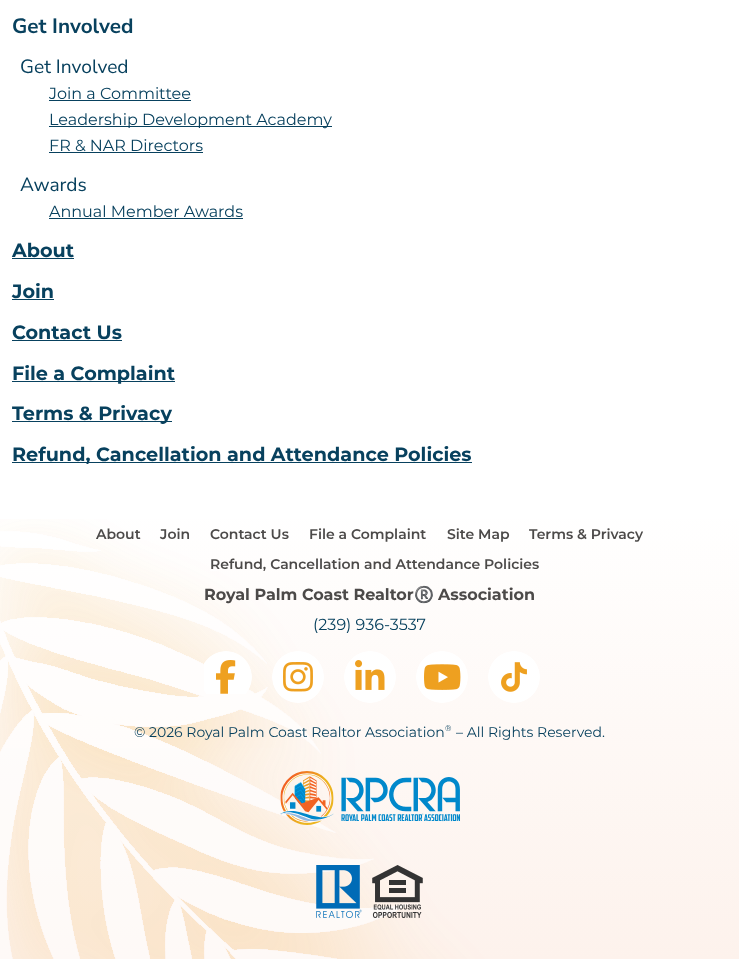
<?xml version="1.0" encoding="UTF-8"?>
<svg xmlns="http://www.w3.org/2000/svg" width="739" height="959">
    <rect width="100%" height="100%" fill="#FFFFFF"/>
    <text x="12" y="33" font-family="Nunito Sans" font-size="20.75" font-weight="700" fill="#08415E">Get Involved</text>
    <text x="20" y="73" font-family="Nunito Sans" font-size="19.2" fill="#08415E">Get Involved</text>
    <text x="49" y="99" font-family="Montserrat" font-size="16" fill="#08415E">Join a Committee</text>
    <rect x="49" y="100" width="142" height="1" fill="#08415E"/>
    <rect x="49" y="126" width="283" height="1" fill="#08415E"/>
    <text font-family="Montserrat" font-size="16" fill="#08415E">
        <tspan x="49" y="125">Leadership Development Academy</tspan>
        <tspan x="49" y="151">FR &amp; NAR Directors</tspan>
    </text>
    <rect x="49" y="152" width="154" height="1" fill="#08415E"/>
    <text x="20" y="191" font-family="Nunito Sans" font-size="19.2" fill="#08415E">Awards</text>
    <text x="49" y="217" font-family="Montserrat" font-size="16" fill="#08415E">Annual Member Awards</text>
    <rect x="49" y="218" width="194" height="1" fill="#08415E"/>
    <text x="12" y="257" font-family="Montserrat" font-size="19.2" font-weight="700" fill="#08415E">About</text>
    <rect x="12" y="258" width="62" height="1" fill="#08415E"/>
    <text x="12" y="298" font-family="Montserrat" font-size="19.2" font-weight="700" fill="#08415E">Join</text>
    <rect x="12" y="299" width="42" height="1" fill="#08415E"/>
    <text x="12" y="339" font-family="Montserrat" font-size="19.2" font-weight="700" fill="#08415E">Contact Us</text>
    <rect x="12" y="340" width="110" height="1" fill="#08415E"/>
    <rect x="12" y="381" width="163" height="1" fill="#08415E"/>
    <text x="12" y="380" font-family="Montserrat" font-size="19.2" font-weight="700" fill="#08415E">File a Complaint</text>
    <rect x="12" y="421" width="160" height="1" fill="#08415E"/>
    <text x="12" y="420" font-family="Montserrat" font-size="19.2" font-weight="700" fill="#08415E">Terms &amp; Privacy</text>
    <rect x="12" y="462" width="460" height="1" fill="#08415E"/>
    <text x="12" y="461" font-family="Montserrat" font-size="19.2" font-weight="700" fill="#08415E">Refund, Cancellation and Attendance Policies</text>
    <image x="0" y="519" width="739" height="440" href="img_01.png"/>
    <text x="96" y="539" font-family="Montserrat" font-size="14" font-weight="600" fill="#4C4A49">About</text>
    <text x="160" y="539" font-family="Montserrat" font-size="14" font-weight="600" fill="#4C4A49">Join</text>
    <text x="210" y="539" font-family="Montserrat" font-size="14" font-weight="600" fill="#4C4A49">Contact Us</text>
    <text x="309" y="539" font-family="Montserrat" font-size="14" font-weight="600" fill="#4C4A49">File a Complaint</text>
    <text x="447" y="539" font-family="Montserrat" font-size="14" font-weight="600" fill="#4C4A49">Site Map</text>
    <text x="529" y="539" font-family="Montserrat" font-size="14" font-weight="600" fill="#4C4A49">Terms &amp; Privacy</text>
    <rect x="210" y="570" width="7" height="1" fill="#FFFEFE"/>
    <text x="210" y="569" font-family="Montserrat" font-size="14" font-weight="600" fill="#4C4A49">Refund, Cancellation and Attendance Policies</text>
    <text x="204" y="600" font-family="Montserrat" font-size="16" font-weight="700" fill="#4C4A49">Royal Palm Coast Realtor</text>
    <text x="414" y="600" font-family="Noto Color Emoji" font-size="16" font-weight="700" fill="#4C4A49">®️</text>
    <text x="438" y="600" font-family="Montserrat" font-size="16" font-weight="700" fill="#4C4A49">Association</text>
    <text x="313" y="630" font-family="Montserrat" font-size="16" fill="#08415E">(239) 936-3537</text>
    <image x="204" y="651" width="48" height="43" href="img_02.png"/>
    <image x="272" y="651" width="52" height="52" href="img_03.png"/>
    <image x="344" y="651" width="52" height="52" href="img_04.png"/>
    <image x="416" y="651" width="52" height="52" href="img_05.png"/>
    <image x="488" y="651" width="52" height="52" href="img_06.png"/>
    <text x="134" y="737" font-family="Montserrat" font-size="14" fill="#08415E">© 2026 Royal Palm Coast Realtor Association</text>
    <text x="445" y="731" font-family="Montserrat" font-size="8" fill="#08415E">®</text>
    <text x="456" y="737" font-family="Montserrat" font-size="14" fill="#08415E">– All Rights Reserved.</text>
    <image x="280" y="771" width="180" height="54" href="img_07.png"/>
    <image x="316" y="865" width="46" height="53" href="img_08.png"/>
    <image x="372" y="865" width="51" height="53" href="img_09.png"/>
</svg>
